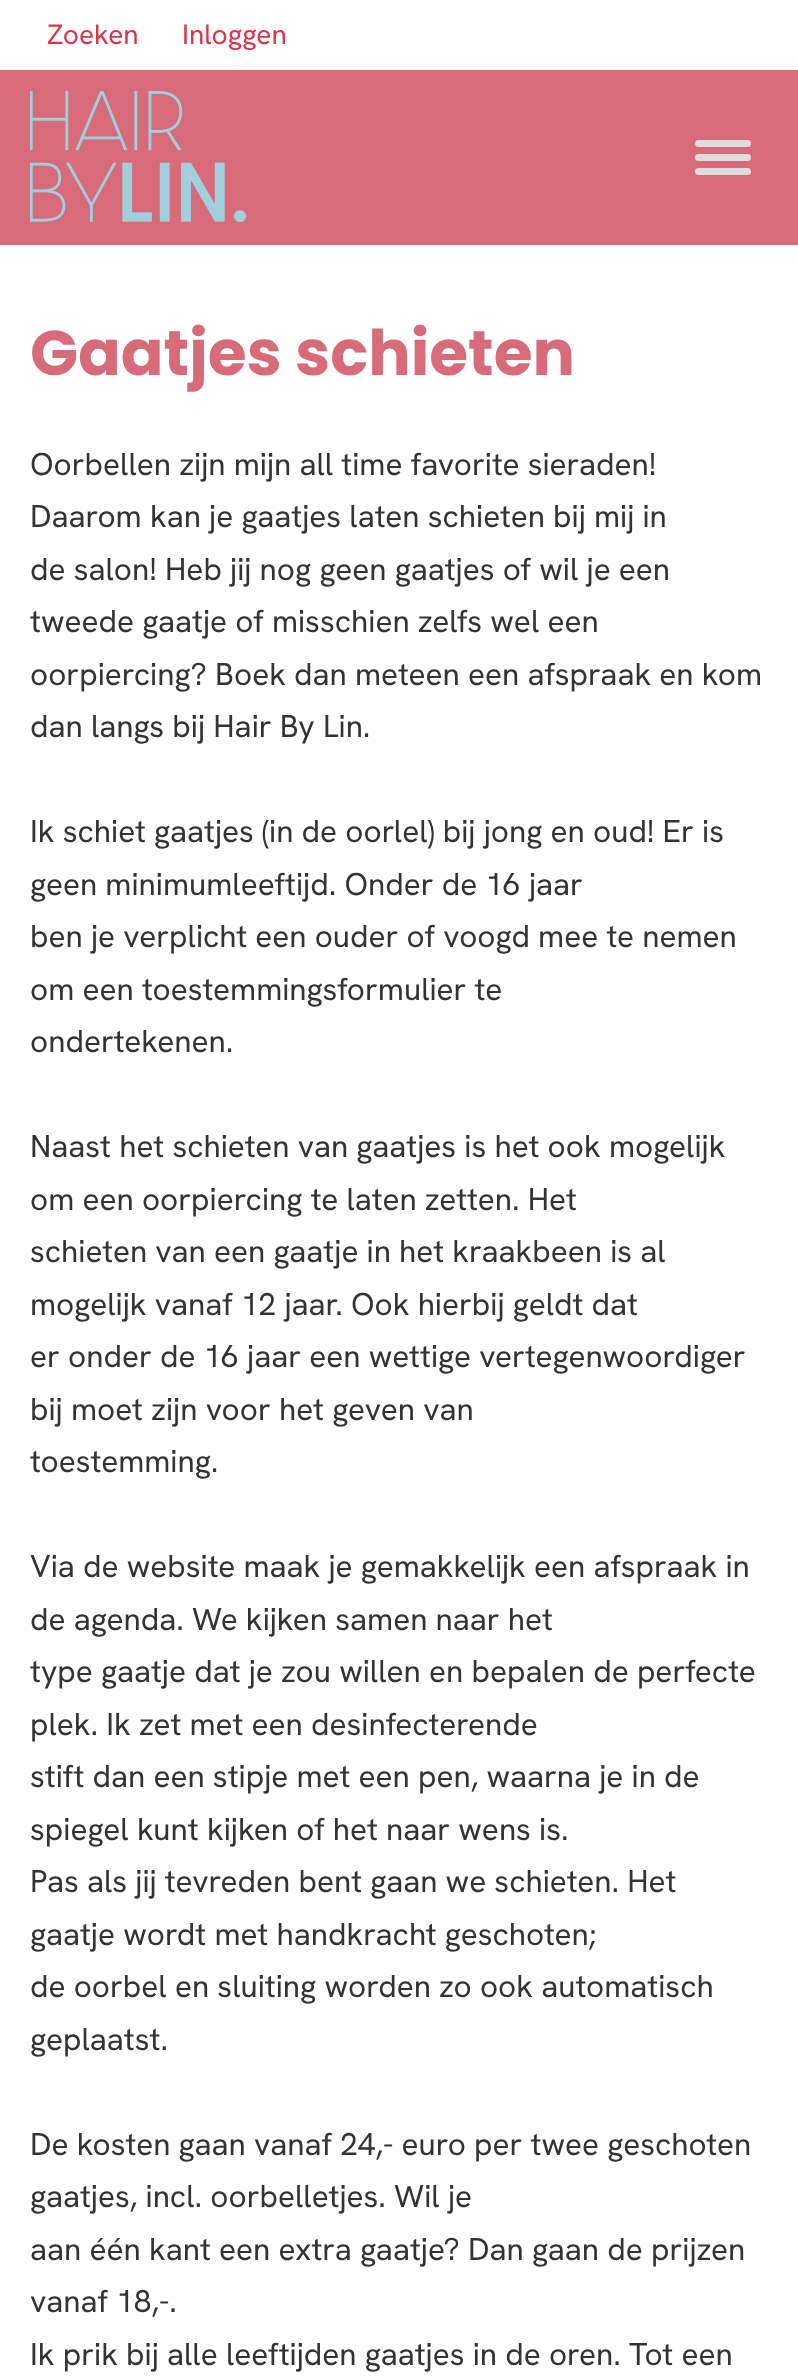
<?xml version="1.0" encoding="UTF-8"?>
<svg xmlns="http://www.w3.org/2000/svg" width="798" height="2376">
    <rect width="100%" height="100%" fill="#FFFFFF"/>
    <text x="47" y="44" font-family="Hanken Grotesk" font-size="28" fill="#E1314B">Zoeken</text>
    <text x="182" y="44" font-family="Hanken Grotesk" font-size="28" fill="#E1314B">Inloggen</text>
    <rect x="0" y="70" width="798" height="175" fill="#D86B79"/>
    <image x="30" y="91" width="216" height="131" href="img_01.png"/>
    <rect x="695" y="140" width="56" height="7" rx="3.5" fill="#DDDDDD"/>
    <rect x="695" y="154" width="56" height="7" rx="3.5" fill="#DDDDDD"/>
    <rect x="695" y="168" width="56" height="7" rx="3.5" fill="#DDDDDD"/>
    <text x="30" y="375" font-family="Poppins" font-size="63" font-weight="700" fill="#D86B79">Gaatjes schieten</text>
    <text font-family="Hanken Grotesk" font-size="31.5" fill="#333333">
        <tspan x="30" y="475">Oorbellen zijn mijn all time favorite sieraden!</tspan>
        <tspan x="30" y="527">Daarom kan je gaatjes laten schieten bij mij in</tspan>
        <tspan x="30" y="580">de salon! Heb jij nog geen gaatjes of wil je een</tspan>
        <tspan x="30" y="632">tweede gaatje of misschien zelfs wel een</tspan>
        <tspan x="30" y="685">oorpiercing? Boek dan meteen een afspraak en kom</tspan>
        <tspan x="30" y="737">dan langs bij Hair By Lin.</tspan>
    </text>
    <text font-family="Hanken Grotesk" font-size="31.5" fill="#333333">
        <tspan x="30" y="842">Ik schiet gaatjes (in de oorlel) bij jong en oud! Er is</tspan>
        <tspan x="30" y="895">geen minimumleeftijd. Onder de 16 jaar</tspan>
        <tspan x="30" y="947">ben je verplicht een ouder of voogd mee te nemen</tspan>
        <tspan x="30" y="1000">om een toestemmingsformulier te</tspan>
        <tspan x="30" y="1052">ondertekenen.</tspan>
    </text>
    <text font-family="Hanken Grotesk" font-size="31.5" fill="#333333">
        <tspan x="30" y="1157">Naast het schieten van gaatjes is het ook mogelijk</tspan>
        <tspan x="30" y="1210">om een oorpiercing te laten zetten. Het</tspan>
        <tspan x="30" y="1262">schieten van een gaatje in het kraakbeen is al</tspan>
        <tspan x="30" y="1315">mogelijk vanaf 12 jaar. Ook hierbij geldt dat</tspan>
        <tspan x="30" y="1367">er onder de 16 jaar een wettige vertegenwoordiger</tspan>
        <tspan x="30" y="1420">bij moet zijn voor het geven van</tspan>
        <tspan x="30" y="1472">toestemming.</tspan>
    </text>
    <text font-family="Hanken Grotesk" font-size="31.5" fill="#333333">
        <tspan x="30" y="1577">Via de website maak je gemakkelijk een afspraak in</tspan>
        <tspan x="30" y="1630">de agenda. We kijken samen naar het</tspan>
        <tspan x="30" y="1682">type gaatje dat je zou willen en bepalen de perfecte</tspan>
        <tspan x="30" y="1735">plek. Ik zet met een desinfecterende</tspan>
        <tspan x="30" y="1787">stift dan een stipje met een pen, waarna je in de</tspan>
        <tspan x="30" y="1840">spiegel kunt kijken of het naar wens is.</tspan>
        <tspan x="30" y="1892">Pas als jij tevreden bent gaan we schieten. Het</tspan>
        <tspan x="30" y="1945">gaatje wordt met handkracht geschoten;</tspan>
        <tspan x="30" y="1997">de oorbel en sluiting worden zo ook automatisch</tspan>
        <tspan x="30" y="2050">geplaatst.</tspan>
    </text>
    <text font-family="Hanken Grotesk" font-size="31.5" fill="#333333">
        <tspan x="30" y="2155">De kosten gaan vanaf 24,- euro per twee geschoten</tspan>
        <tspan x="30" y="2207">gaatjes, incl. oorbelletjes. Wil je</tspan>
        <tspan x="30" y="2260">aan één kant een extra gaatje? Dan gaan de prijzen</tspan>
        <tspan x="30" y="2312">vanaf 18,-.</tspan>
        <tspan x="30" y="2365">Ik prik bij alle leeftijden gaatjes in de oren. Tot een</tspan>
    </text>
</svg>
